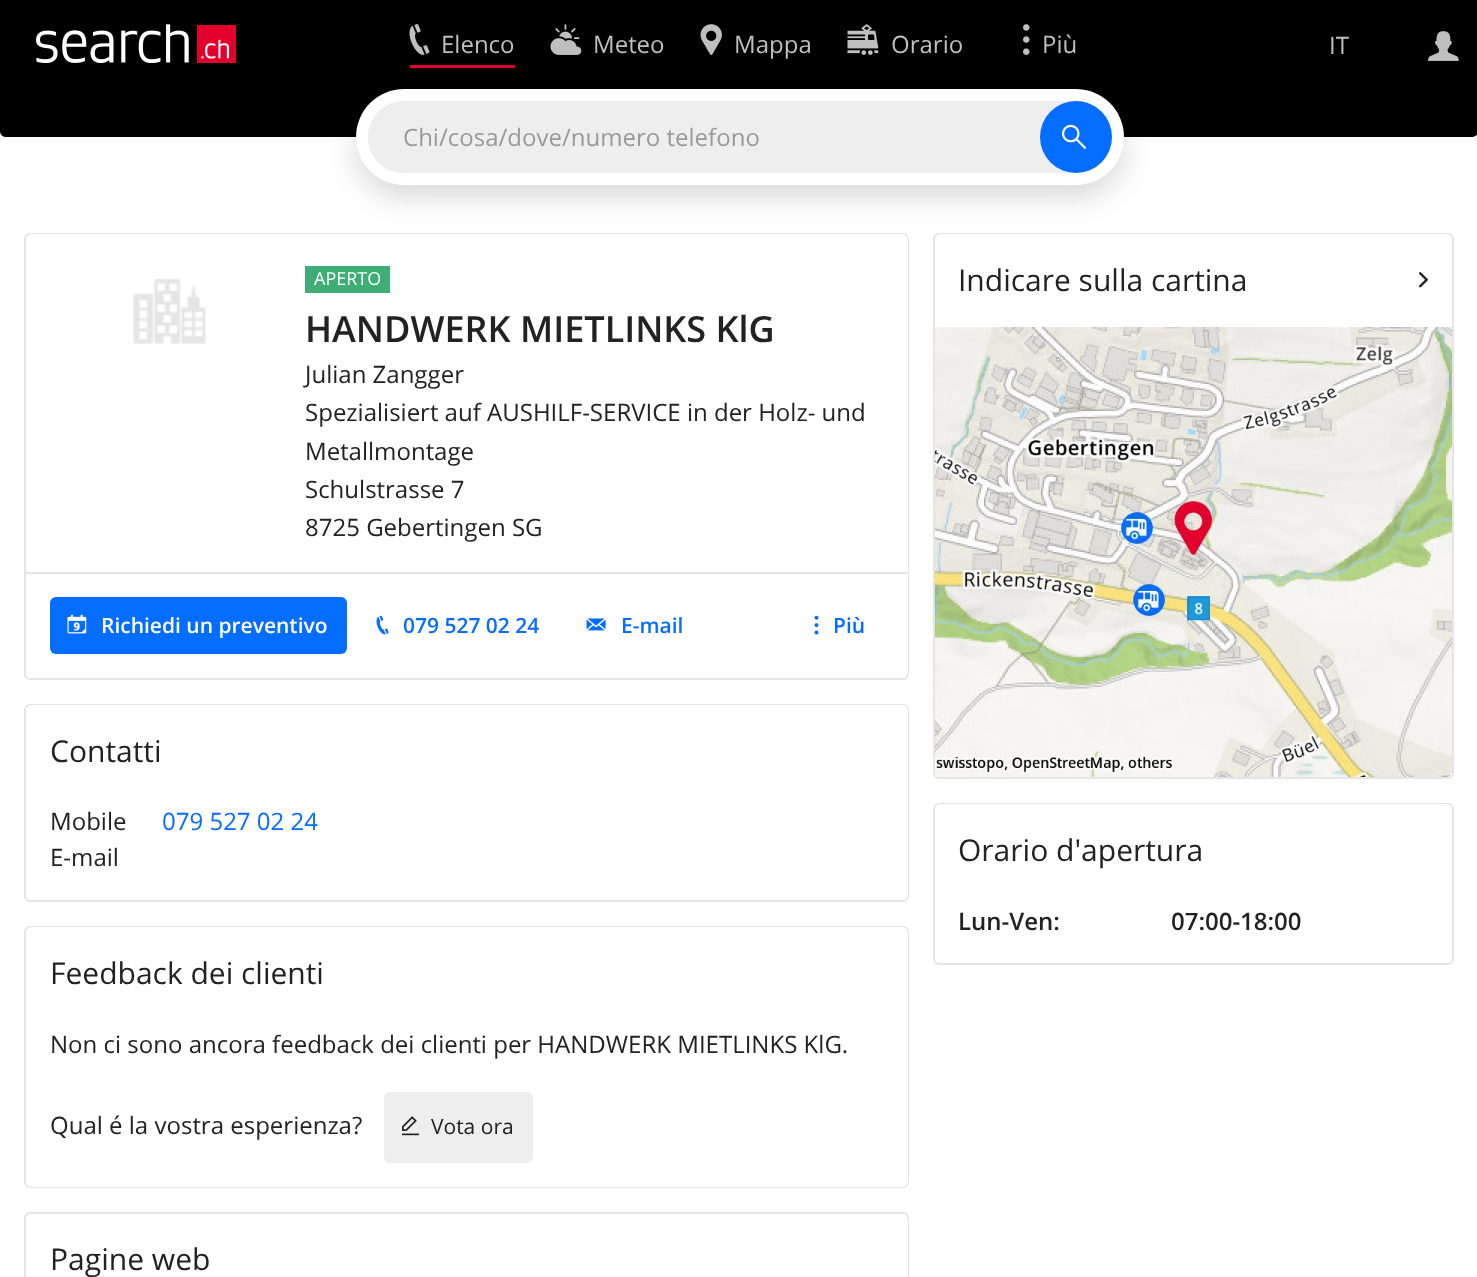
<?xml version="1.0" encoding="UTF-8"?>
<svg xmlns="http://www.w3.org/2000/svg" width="1477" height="1277">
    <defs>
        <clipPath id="clip1"><rect x="26" y="234" width="882" height="444" rx="5"/></clipPath>
        <clipPath id="clip2"><rect x="935" y="234" width="517" height="543" rx="5"/></clipPath>
        <filter id="blur1" x="-50%" y="-200%" width="200%" height="500%"><feGaussianBlur stdDeviation="15"/></filter>
        <clipPath id="clip3"><rect x="26" y="705" width="882" height="195" rx="5"/></clipPath>
        <clipPath id="clip4"><rect x="26" y="927" width="882" height="260" rx="5"/></clipPath>
        <clipPath id="clip5"><rect x="26" y="1214" width="882" height="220" rx="5"/></clipPath>
        <clipPath id="clip6"><rect x="935" y="804" width="517" height="159" rx="5"/></clipPath>
    </defs>
    <rect width="100%" height="100%" fill="#FFFFFF"/>
    <rect x="0" y="0" width="1477" height="89" fill="#000000"/>
    <image x="36" y="24" width="200" height="39" href="img_01.png"/>
    <rect x="410" y="65" width="105" height="3" fill="#E4002C"/>
    <image x="409" y="24" width="21" height="31" href="img_02.png"/>
    <text x="441" y="53" font-family="Open Sans" font-size="24" fill="#BFBFBF">Elenco</text>
    <image x="550" y="24" width="32" height="31" href="img_03.png"/>
    <text x="593" y="53" font-family="Open Sans" font-size="24" fill="#BFBFBF">Meteo</text>
    <image x="700" y="24" width="22" height="31" href="img_04.png"/>
    <text x="734" y="53" font-family="Open Sans" font-size="24" fill="#BFBFBF">Mappa</text>
    <image x="847" y="24" width="32" height="31" href="img_05.png"/>
    <text x="891" y="53" font-family="Open Sans" font-size="24" fill="#BFBFBF">Orario</text>
    <image x="1023" y="24" width="7" height="31" href="img_06.png"/>
    <text x="1042" y="53" font-family="Open Sans" font-size="24" fill="#BFBFBF">Più</text>
    <text x="1329" y="54" font-family="Open Sans" font-size="24" fill="#BFBFBF">IT</text>
    <image x="1428" y="31" width="31" height="30" href="img_07.png"/>
    <path d="M 0 89 H 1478 V 131 C 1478 134.5 1475.5 137 1472 137 H 6 C 2.5 137 0 134.5 0 131 Z" fill="#000000"/>
    <rect x="25" y="234" width="883" height="445" rx="5" fill="none" stroke="#E5E5E5" stroke-width="2"/>
    <g clip-path="url(#clip1)">
        <rect x="26" y="234" width="882" height="444" rx="6" fill="#FFFFFF"/>
    </g>
    <rect x="934" y="234" width="519" height="544" rx="5" fill="none" stroke="#E5E5E5" stroke-width="2"/>
    <g clip-path="url(#clip2)">
        <rect x="935" y="234" width="517" height="543" rx="6" fill="#FFFFFF"/>
    </g>
    <rect x="356" y="101" width="768" height="96" rx="48" fill="#000000" fill-opacity="0.15" filter="url(#blur1)"/>
    <rect x="356" y="89" width="768" height="96" rx="48" fill="#FFFFFF"/>
    <rect x="368" y="101" width="744" height="72" rx="36" fill="#EEEEEE"/>
    <rect x="368" y="101" width="672" height="72" rx="36" fill="#EEEEEE"/>
    <text x="403" y="146" font-family="Open Sans" font-size="24" fill="#999999">Chi/cosa/dove/numero telefono</text>
    <circle cx="1076" cy="137" r="36" fill="#056DFF"/>
    <image x="1062" y="124" width="25" height="25" href="img_08.png"/>
    <image x="133" y="278" width="73" height="66" href="img_09.png"/>
    <rect x="305" y="266" width="85" height="27" fill="#3EAD76"/>
    <text x="314" y="285" font-family="Open Sans" font-size="18" fill="#FFFFFF">APERTO</text>
    <text x="305" y="342" font-family="Open Sans" font-size="36" font-weight="600" fill="#222222">HANDWERK MIETLINKS KlG</text>
    <text font-family="Open Sans" font-size="24" fill="#222222">
        <tspan x="305" y="383">Julian Zangger</tspan>
        <tspan x="305" y="421">Spezialisiert auf AUSHILF-SERVICE in der Holz- und</tspan>
        <tspan x="305" y="460">Metallmontage</tspan>
        <tspan x="305" y="498">Schulstrasse 7</tspan>
        <tspan x="305" y="536">8725 Gebertingen SG</tspan>
    </text>
    <rect x="26" y="572" width="882" height="2" fill="#E6E6E6"/>
    <rect x="50" y="597" width="297" height="57" rx="6" fill="#056DFF"/>
    <image x="67" y="614" width="20" height="20" href="img_10.png"/>
    <text x="101" y="633" font-family="Open Sans" font-size="21" font-weight="600" fill="#FFFFFF">Richiedi un preventivo</text>
    <image x="376" y="615" width="13" height="20" href="img_11.png"/>
    <text x="403" y="633" font-family="Open Sans" font-size="21" font-weight="600" fill="#056DFF">079 527 02 24</text>
    <image x="586" y="618" width="20" height="13" href="img_12.png"/>
    <text x="621" y="633" font-family="Open Sans" font-size="21" font-weight="600" fill="#056DFF">E-mail</text>
    <image x="814" y="615" width="5" height="20" href="img_13.png"/>
    <text x="833" y="633" font-family="Open Sans" font-size="21" font-weight="600" fill="#056DFF">Più</text>
    <rect x="25" y="705" width="883" height="196" rx="5" fill="none" stroke="#E5E5E5" stroke-width="2"/>
    <g clip-path="url(#clip3)">
        <rect x="26" y="705" width="882" height="195" rx="6" fill="#FFFFFF"/>
    </g>
    <text x="50" y="762" font-family="Open Sans" font-size="30" fill="#222222">Contatti</text>
    <text x="50" y="830" font-family="Open Sans" font-size="24" fill="#222222">Mobile</text>
    <text x="162" y="830" font-family="Open Sans" font-size="24" fill="#056DFF">079 527 02 24</text>
    <text x="50" y="866" font-family="Open Sans" font-size="24" fill="#222222">E-mail</text>
    <rect x="25" y="927" width="883" height="260" rx="5" fill="none" stroke="#E5E5E5" stroke-width="2"/>
    <g clip-path="url(#clip4)">
        <rect x="26" y="927" width="882" height="260" rx="6" fill="#FFFFFF"/>
    </g>
    <text x="50" y="984" font-family="Open Sans" font-size="30" fill="#222222">Feedback dei clienti</text>
    <text x="50" y="1053" font-family="Open Sans" font-size="24" fill="#222222">Non ci sono ancora feedback dei clienti per HANDWERK MIETLINKS KlG.</text>
    <text x="50" y="1134" font-family="Open Sans" font-size="24" fill="#222222">Qual é la vostra esperienza?</text>
    <rect x="384" y="1092" width="149" height="71" rx="6" fill="#EEEEEE"/>
    <image x="402" y="1116" width="18" height="20" href="img_14.png"/>
    <text x="431" y="1134" font-family="Open Sans" font-size="21" fill="#222222">Vota ora</text>
    <rect x="25" y="1213" width="883" height="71" rx="5" fill="none" stroke="#E5E5E5" stroke-width="2"/>
    <g clip-path="url(#clip5)">
        <rect x="26" y="1214" width="882" height="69" rx="6" fill="#FFFFFF"/>
    </g>
    <text x="50" y="1270" font-family="Open Sans" font-size="30" fill="#222222">Pagine web</text>
    <text x="958" y="291" font-family="Open Sans" font-size="30" fill="#222222">Indicare sulla cartina</text>
    <image x="1419" y="272" width="9" height="16" href="img_15.png"/>
    <image x="934" y="327" width="518" height="450" href="img_16.png"/>
    <rect x="934" y="804" width="519" height="160" rx="5" fill="none" stroke="#E5E5E5" stroke-width="2"/>
    <g clip-path="url(#clip6)">
        <rect x="935" y="804" width="517" height="159" rx="6" fill="#FFFFFF"/>
    </g>
    <text x="958" y="861" font-family="Open Sans" font-size="30" fill="#222222">Orario d'apertura</text>
    <text x="958" y="930" font-family="Open Sans" font-size="24" font-weight="600" fill="#222222">Lun-Ven:</text>
    <text x="1171" y="930" font-family="Open Sans" font-size="24" font-weight="600" fill="#222222">07:00-18:00</text>
</svg>
